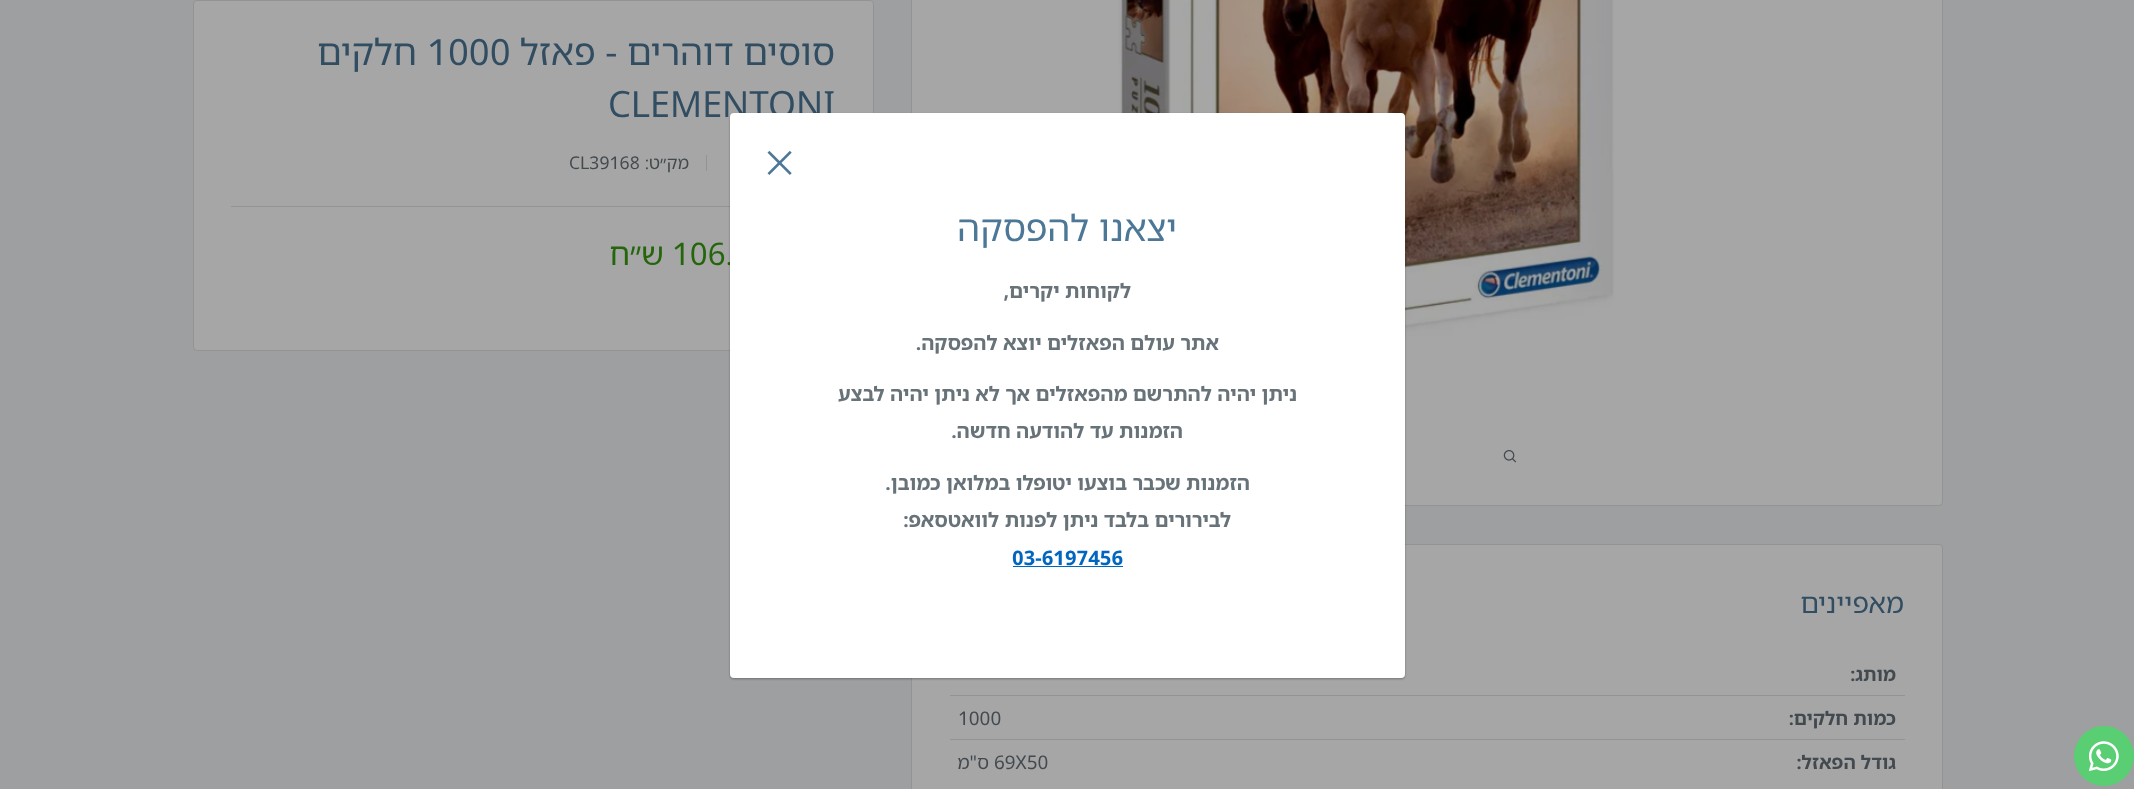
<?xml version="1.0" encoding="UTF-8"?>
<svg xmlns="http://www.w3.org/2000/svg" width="2134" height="789">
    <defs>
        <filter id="blur1" x="-50%" y="-200%" width="200%" height="500%"><feGaussianBlur stdDeviation="1"/></filter>
    </defs>
    <rect width="100%" height="100%" fill="#9E9FA0"/>
    <rect x="911.5" y="-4.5" width="1031" height="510" rx="3.5" fill="#A6A6A6" stroke="#929494"/>
    <image x="1072" y="0" width="542" height="366" href="img_01.png"/>
    <image x="1503" y="450" width="14" height="13" href="img_02.png"/>
    <rect x="193.5" y="0.5" width="680" height="350" rx="3.5" fill="#A6A6A6" stroke="#929494"/>
    <text x="835" y="65" font-family="Noto Sans Hebrew" font-size="36.25" direction="rtl" fill="#314D62">סוסים דוהרים - פאזל</text>
    <text x="427" y="65" font-family="Noto Sans Hebrew" font-size="36.25" fill="#314D62">1000</text>
    <text x="417" y="65" font-family="Noto Sans Hebrew" font-size="36.25" direction="rtl" fill="#314D62">חלקים</text>
    <text x="608" y="117" font-family="Noto Sans Hebrew" font-size="36.25" fill="#314D62">CLEMENTONI</text>
    <rect x="706" y="155" width="1" height="16" fill="#929494"/>
    <text x="689" y="169" font-family="Noto Sans Hebrew" font-size="17.5" direction="rtl" fill="#434A4F">מק״ט:</text>
    <text x="569" y="169" font-family="Noto Sans Hebrew" font-size="17.5" fill="#434A4F">CL39168</text>
    <rect x="231" y="206" width="499" height="1" fill="#929494"/>
    <text x="672" y="265" font-family="Noto Sans Hebrew" font-size="31" fill="#25660D">106.</text>
    <text x="664" y="265" font-family="Noto Sans Hebrew" font-size="31" direction="rtl" fill="#25660D">ש״ח</text>
    <rect x="911.5" y="544.5" width="1031" height="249" rx="3.5" fill="#A6A6A6" stroke="#929494"/>
    <text x="1904" y="613" font-family="Noto Sans Hebrew" font-size="27.5" direction="rtl" fill="#314D62">מאפיינים</text>
    <text x="1896" y="681" font-family="Noto Sans Hebrew" font-size="18.75" font-weight="700" direction="rtl" fill="#434A4F">מותג:</text>
    <rect x="950" y="695" width="955" height="1" fill="#929494"/>
    <rect x="950" y="739" width="955" height="1" fill="#929494"/>
    <text x="1896" y="725" font-family="Noto Sans Hebrew" font-size="18.75" font-weight="700" direction="rtl" fill="#434A4F">כמות חלקים:</text>
    <text x="958" y="725" font-family="Noto Sans Hebrew" font-size="18.75" fill="#434A4F">1000</text>
    <text x="1896" y="769" font-family="Noto Sans Hebrew" font-size="18.75" font-weight="700" direction="rtl" fill="#434A4F">גודל הפאזל:</text>
    <text x="994" y="769" font-family="Noto Sans Hebrew" font-size="18.75" fill="#434A4F">69X50</text>
    <text x="989" y="769" font-family="Noto Sans Hebrew" font-size="18.75" direction="rtl" fill="#434A4F">ס"מ</text>
    <rect x="730" y="114" width="675" height="565" rx="4" fill="#000000" fill-opacity="0.3" filter="url(#blur1)"/>
    <rect x="730" y="113" width="675" height="565" rx="4" fill="#FFFFFF"/>
    <image x="767" y="150" width="25" height="25" href="img_03.png"/>
    <text x="1177" y="241" font-family="Noto Sans Hebrew" font-size="36.25" direction="rtl" fill="#4C7797">יצאנו להפסקה</text>
    <text x="1131" y="298" font-family="Noto Sans Hebrew" font-size="20" font-weight="700" direction="rtl" fill="#677279">לקוחות יקרים,</text>
    <text x="1219" y="350" font-family="Noto Sans Hebrew" font-size="20" font-weight="700" direction="rtl" fill="#677279">אתר עולם הפאזלים יוצא להפסקה.</text>
    <text x="1297" y="401" font-family="Noto Sans Hebrew" font-size="20" font-weight="700" direction="rtl" fill="#677279">ניתן יהיה להתרשם מהפאזלים אך לא ניתן יהיה לבצע</text>
    <text x="1183" y="438" font-family="Noto Sans Hebrew" font-size="20" font-weight="700" direction="rtl" fill="#677279">הזמנות עד להודעה חדשה.</text>
    <text x="1250" y="490" font-family="Noto Sans Hebrew" font-size="20" font-weight="700" direction="rtl" fill="#677279">הזמנות שכבר בוצעו יטופלו במלואן כמובן.</text>
    <text x="1231" y="527" font-family="Noto Sans Hebrew" font-size="20" font-weight="700" direction="rtl" fill="#677279">לבירורים בלבד ניתן לפנות לוואטסאפ:</text>
    <text x="1012" y="565" font-family="Noto Sans Hebrew" font-size="20" font-weight="700" fill="#0066C0">03-6197456</text>
    <rect x="1013" y="566" width="110" height="1" fill="#0066C0"/>
    <circle cx="2104" cy="756" r="30" fill="#59CE72"/>
    <image x="2089" y="741" width="30" height="30" href="img_04.png"/>
</svg>
